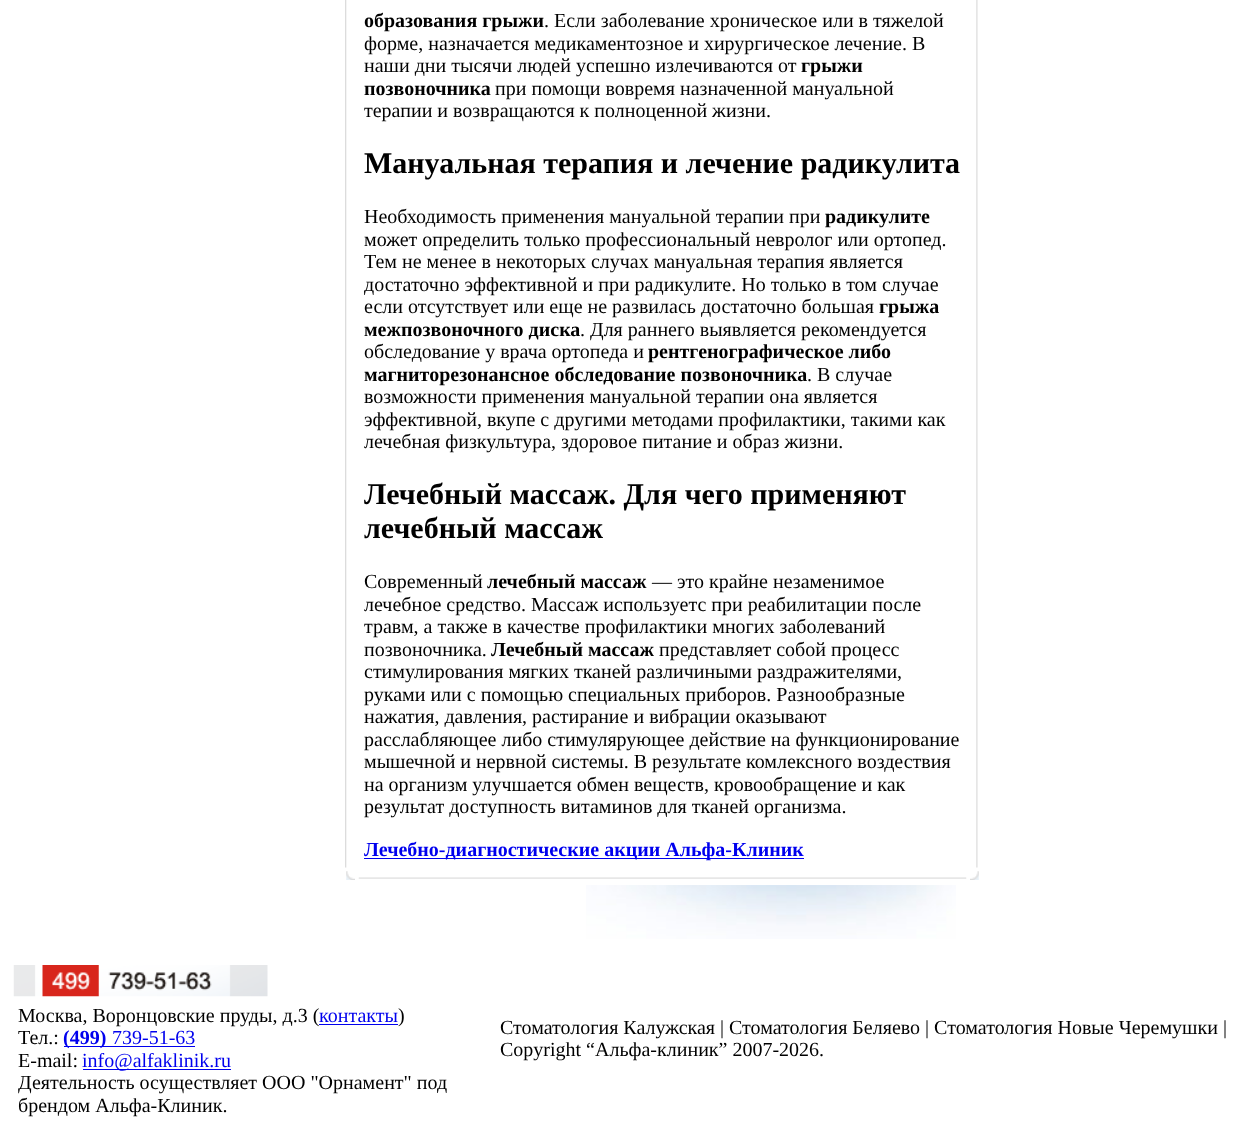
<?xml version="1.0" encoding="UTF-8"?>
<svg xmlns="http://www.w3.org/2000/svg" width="1260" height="1134">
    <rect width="100%" height="100%" fill="#FFFFFF"/>
    <image x="345" y="0" width="2" height="868" href="img_01.png"/>
    <text x="364" y="27" font-family="Liberation Serif" font-size="20" font-weight="700" fill="#000000">образования грыжи</text>
    <text x="544" y="27" font-family="Liberation Serif" font-size="20" fill="#000000">. Если заболевание хроническое или в тяжелой</text>
    <text font-family="Liberation Serif" font-size="20" fill="#000000">
        <tspan x="364" y="50">форме, назначается медикаментозное и хирургическое лечение. В</tspan>
        <tspan x="364" y="72">наши дни тысячи людей успешно излечиваются от</tspan>
    </text>
    <text x="801" y="72" font-family="Liberation Serif" font-size="20" font-weight="700" fill="#000000">грыжи</text>
    <text x="364" y="95" font-family="Liberation Serif" font-size="20" font-weight="700" fill="#000000">позвоночника</text>
    <text x="495" y="95" font-family="Liberation Serif" font-size="20" fill="#000000">при помощи вовремя назначенной мануальной</text>
    <text x="364" y="117" font-family="Liberation Serif" font-size="20" fill="#000000">терапии и возвращаются к полноценной жизни.</text>
    <text x="364" y="173" font-family="Liberation Serif" font-size="30" font-weight="700" fill="#000000">Мануальная терапия и лечение радикулита</text>
    <text x="364" y="223" font-family="Liberation Serif" font-size="20" fill="#000000">Необходимость применения мануальной терапии при</text>
    <text x="825" y="223" font-family="Liberation Serif" font-size="20" font-weight="700" fill="#000000">радикулите</text>
    <text font-family="Liberation Serif" font-size="20" fill="#000000">
        <tspan x="364" y="246">может определить только профессиональный невролог или ортопед.</tspan>
        <tspan x="364" y="268">Тем не менее в некоторых случах мануальная терапия является</tspan>
        <tspan x="364" y="291">достаточно эффективной и при радикулите. Но только в том случае</tspan>
        <tspan x="364" y="313">если отсутствует или еще не развилась достаточно большая</tspan>
    </text>
    <text x="879" y="313" font-family="Liberation Serif" font-size="20" font-weight="700" fill="#000000">грыжа</text>
    <text x="364" y="336" font-family="Liberation Serif" font-size="20" font-weight="700" fill="#000000">межпозвоночного диска</text>
    <text x="580" y="336" font-family="Liberation Serif" font-size="20" fill="#000000">. Для раннего выявляется рекомендуется</text>
    <text x="364" y="358" font-family="Liberation Serif" font-size="20" fill="#000000">обследование у врача ортопеда и</text>
    <text x="648" y="358" font-family="Liberation Serif" font-size="20" font-weight="700" fill="#000000">рентгенографическое либо</text>
    <text x="364" y="381" font-family="Liberation Serif" font-size="20" font-weight="700" fill="#000000">магниторезонансное обследование позвоночника</text>
    <text x="807" y="381" font-family="Liberation Serif" font-size="20" fill="#000000">. В случае</text>
    <text font-family="Liberation Serif" font-size="20" fill="#000000">
        <tspan x="364" y="403">возможности применения мануальной терапии она является</tspan>
        <tspan x="364" y="426">эффективной, вкупе с другими методами профилактики, такими как</tspan>
        <tspan x="364" y="448">лечебная физкультура, здоровое питание и образ жизни.</tspan>
    </text>
    <text font-family="Liberation Serif" font-size="30" font-weight="700" fill="#000000">
        <tspan x="364" y="504">Лечебный массаж. Для чего применяют</tspan>
        <tspan x="364" y="538">лечебный массаж</tspan>
    </text>
    <text x="364" y="588" font-family="Liberation Serif" font-size="20" fill="#000000">Современный</text>
    <text x="487" y="588" font-family="Liberation Serif" font-size="20" font-weight="700" fill="#000000">лечебный массаж</text>
    <text x="652" y="588" font-family="Liberation Serif" font-size="20" fill="#000000">— это крайне незаменимое</text>
    <text font-family="Liberation Serif" font-size="20" fill="#000000">
        <tspan x="364" y="611">лечебное средство. Массаж используетс при реабилитации после</tspan>
        <tspan x="364" y="633">травм, а также в качестве профилактики многих заболеваний</tspan>
        <tspan x="364" y="656">позвоночника.</tspan>
    </text>
    <text x="491" y="656" font-family="Liberation Serif" font-size="20" font-weight="700" fill="#000000">Лечебный массаж</text>
    <text x="659" y="656" font-family="Liberation Serif" font-size="20" fill="#000000">представляет собой процесс</text>
    <text font-family="Liberation Serif" font-size="20" fill="#000000">
        <tspan x="364" y="678">стимулирования мягких тканей различиными раздражителями,</tspan>
        <tspan x="364" y="701">руками или с помощью специальных приборов. Разнообразные</tspan>
        <tspan x="364" y="723">нажатия, давления, растирание и вибрации оказывают</tspan>
        <tspan x="364" y="746">расслабляющее либо стимулярующее действие на функционирование</tspan>
        <tspan x="364" y="768">мышечной и нервной системы. В результате комлексного воздествия</tspan>
        <tspan x="364" y="791">на организм улучшается обмен веществ, кровообращение и как</tspan>
        <tspan x="364" y="813">результат доступность витаминов для тканей организма.</tspan>
    </text>
    <rect x="364" y="858" width="440" height="1" fill="#0000EE"/>
    <text x="364" y="856" font-family="Liberation Serif" font-size="20" font-weight="700" fill="#0000EE">Лечебно-диагностические акции Альфа-Клиник</text>
    <image x="976" y="0" width="2" height="868" href="img_02.png"/>
    <image x="346" y="871" width="9" height="9" href="img_03.png"/>
    <image x="358" y="877" width="609" height="2" href="img_04.png"/>
    <image x="970" y="871" width="9" height="9" href="img_05.png"/>
    <image x="586" y="885" width="370" height="54" href="img_06.png"/>
    <image x="13" y="965" width="255" height="32" href="img_07.png"/>
    <text x="18" y="1022" font-family="Liberation Serif" font-size="20" fill="#000000">Москва, Воронцовские пруды, д.3 (</text>
    <text x="319" y="1022" font-family="Liberation Serif" font-size="20" fill="#0000EE">контакты</text>
    <rect x="319" y="1024" width="79" height="1" fill="#0000EE"/>
    <text x="398" y="1022" font-family="Liberation Serif" font-size="20" fill="#000000">)</text>
    <text x="18" y="1044" font-family="Liberation Serif" font-size="20" fill="#000000">Тел.:</text>
    <rect x="64" y="1046" width="131" height="1" fill="#0000EE"/>
    <text x="63" y="1044" font-family="Liberation Serif" font-size="20" font-weight="700" fill="#0000EE">(499)</text>
    <text x="112" y="1044" font-family="Liberation Serif" font-size="20" fill="#0000EE">739-51-63</text>
    <text x="18" y="1067" font-family="Liberation Serif" font-size="20" fill="#000000">E-mail:</text>
    <rect x="83" y="1069" width="148" height="1" fill="#0000EE"/>
    <text x="82" y="1067" font-family="Liberation Serif" font-size="20" fill="#0000EE">info@alfaklinik.ru</text>
    <text font-family="Liberation Serif" font-size="20" fill="#000000">
        <tspan x="18" y="1089">Деятельность осуществляет ООО "Орнамент" под</tspan>
        <tspan x="18" y="1112">брендом Альфа-Клиник.</tspan>
    </text>
    <text font-family="Liberation Serif" font-size="20" fill="#000000">
        <tspan x="500" y="1034">Стоматология Калужская | Стоматология Беляево | Стоматология Новые Черемушки |</tspan>
        <tspan x="500" y="1056">Copyright “Альфа-клиник” 2007-2026.</tspan>
    </text>
</svg>
